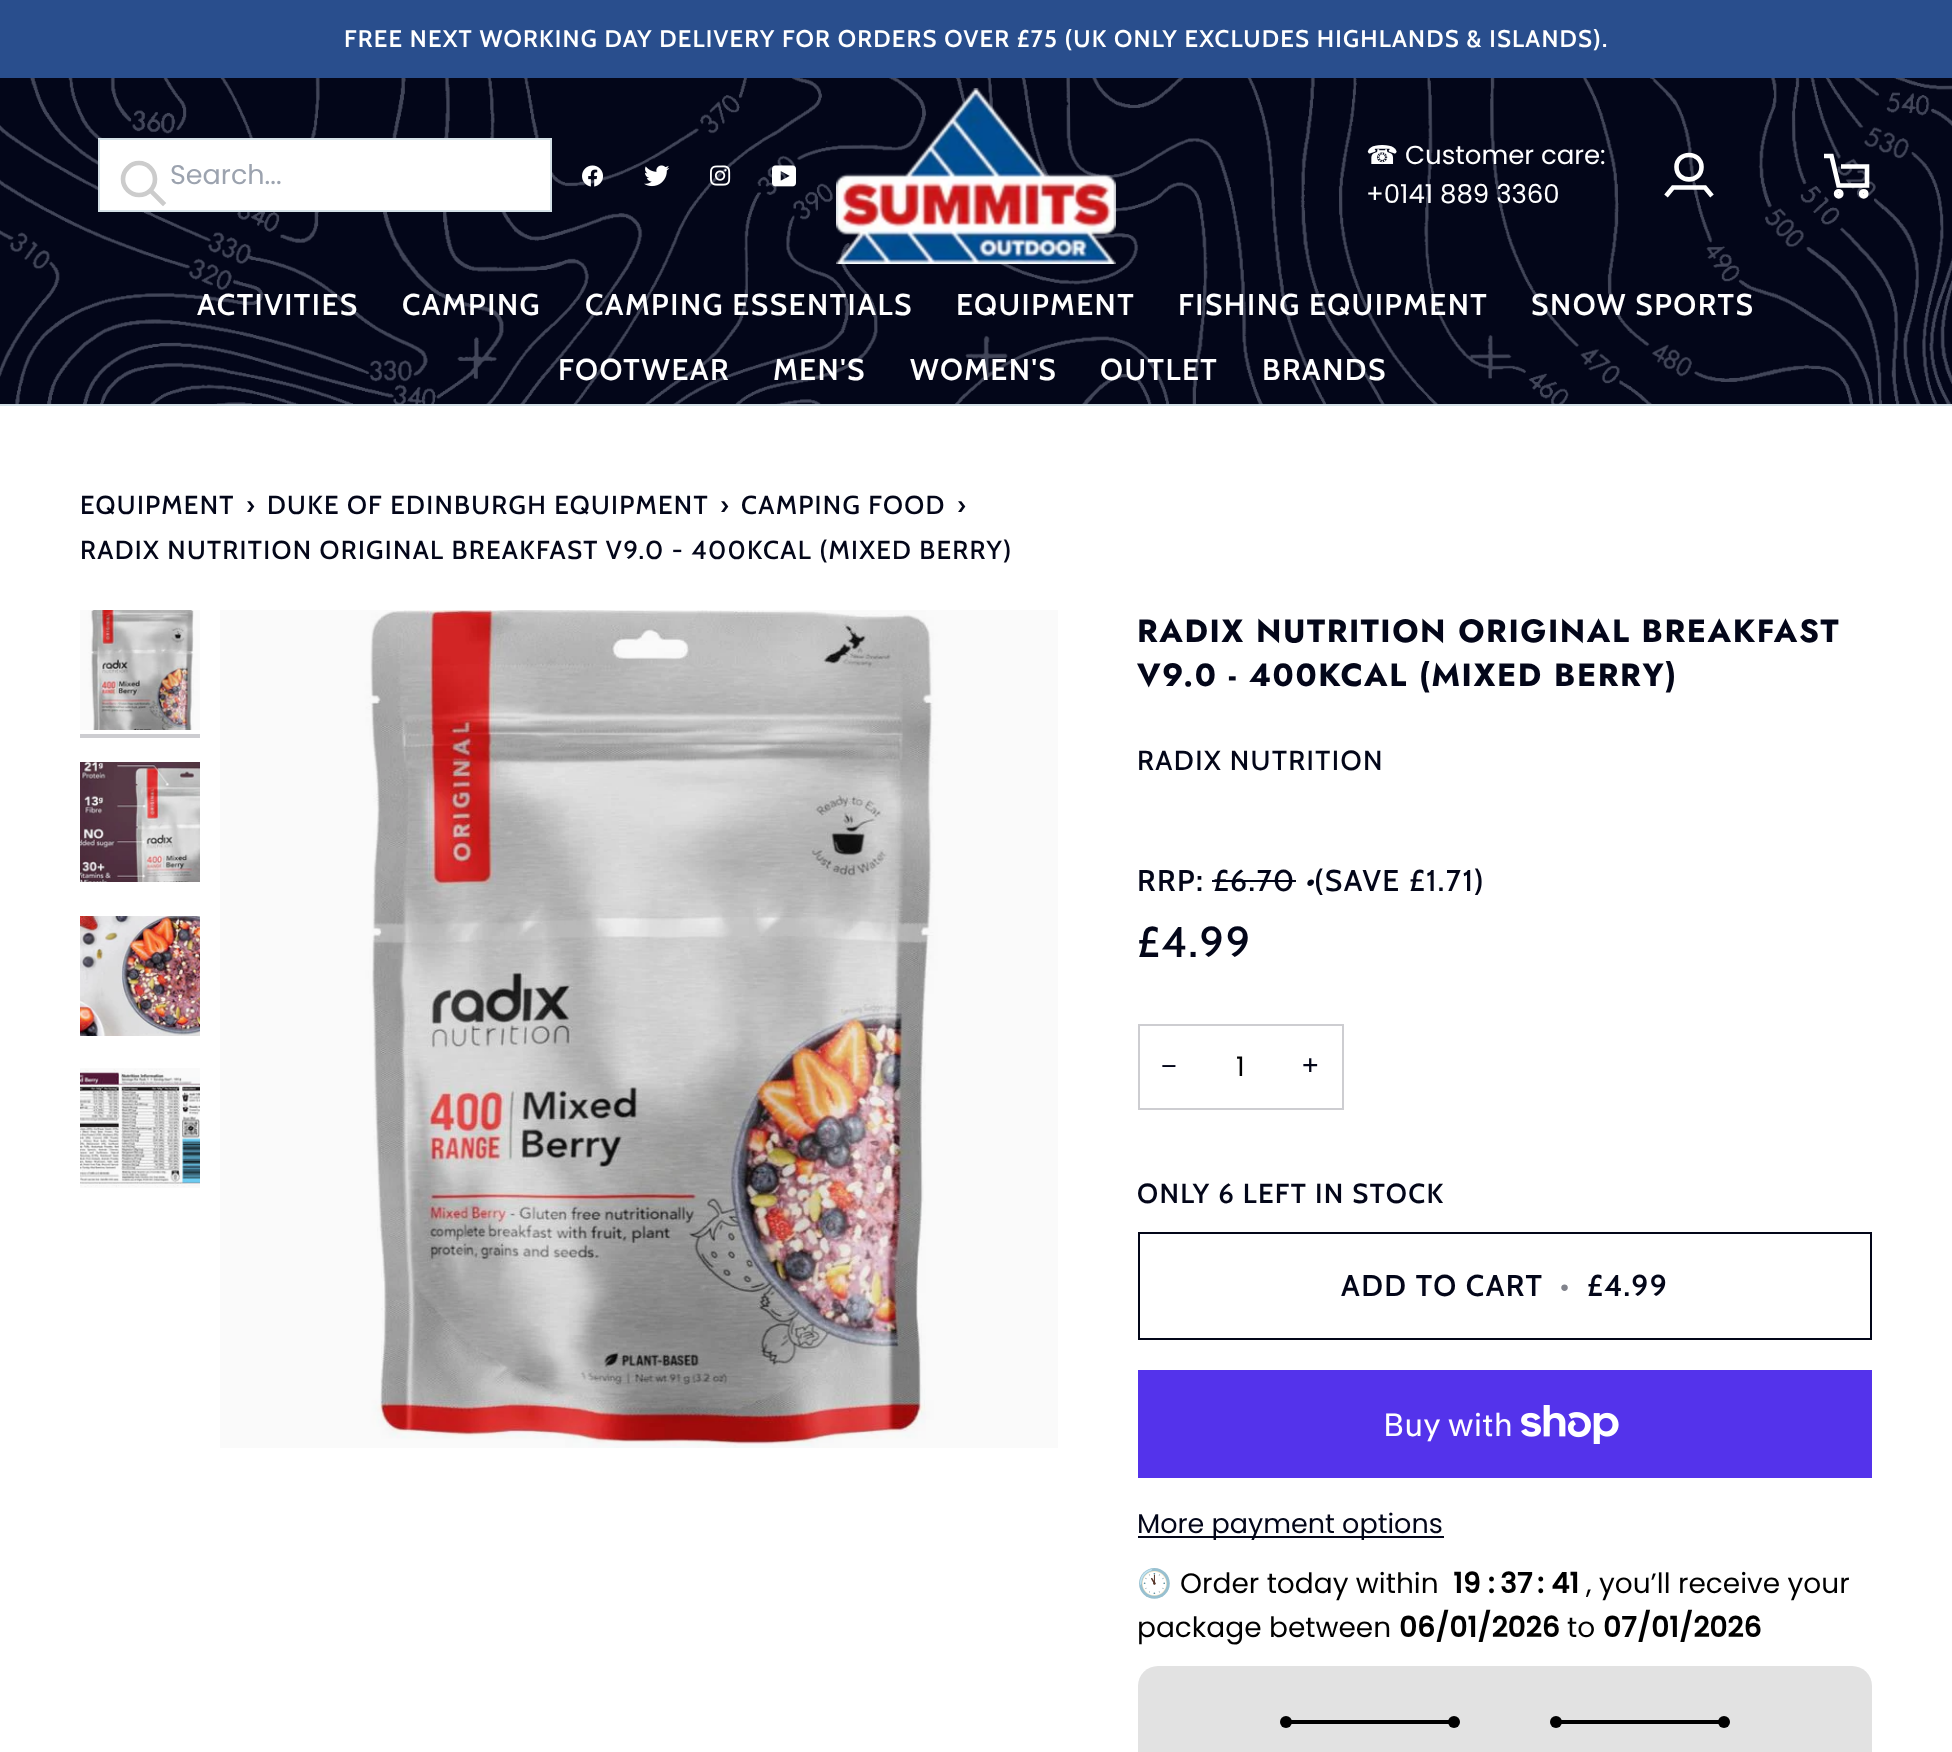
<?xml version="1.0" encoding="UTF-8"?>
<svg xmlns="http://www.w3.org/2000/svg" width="1952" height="1752">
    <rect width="100%" height="100%" fill="#FFFFFF"/>
    <rect x="0" y="0" width="1952" height="78" fill="#294E8D"/>
    <text x="344" y="47" font-family="Cabin" font-size="24" font-weight="600" letter-spacing="1.2" fill="#FFFFFF">FREE NEXT WORKING DAY DELIVERY FOR ORDERS OVER £75 (UK ONLY EXCLUDES HIGHLANDS &amp; ISLANDS).</text>
    <rect x="0" y="78" width="1952" height="326" fill="#030619"/>
    <rect x="0" y="404" width="1952" height="2" fill="#D4E1E7"/>
    <image x="0" y="78" width="1952" height="326" href="img_01.png"/>
    <rect x="99" y="139" width="452" height="72" fill="#FFFFFF" stroke="#D4E1E7" stroke-width="2"/>
    <path d="M 139 195 C 148 195 155 188 155 179 C 155 170.5 148 163 139 163 C 130.5 163 123 170.5 123 179 C 123 188 130.5 195 139 195 Z M 163 203 L 151 191" fill="none" stroke="#CCCCCC" stroke-width="4.6" stroke-linecap="square"/>
    <text x="170" y="184" font-family="Poppins" font-size="27" fill="#9CA3AF">Search...</text>
    <image x="582" y="165" width="22" height="22" href="img_02.png"/>
    <image x="644" y="165" width="26" height="22" href="img_03.png"/>
    <image x="710" y="165" width="21" height="21" href="img_04.png"/>
    <image x="772" y="165" width="24" height="22" href="img_05.png"/>
    <image x="836" y="88" width="280" height="176" href="img_06.png"/>
    <text x="1366" y="164" font-family="DejaVu Sans" font-size="26" fill="#FFFFFF">☎</text>
    <text x="1405" y="164" font-family="Poppins" font-size="26" fill="#FFFFFF">Customer care:</text>
    <text x="1366" y="203" font-family="Poppins" font-size="26" fill="#FFFFFF">+0141 889 3360</text>
    <path d="M 1666 196 L 1673 187.5 H 1705 L 1712 196 M 1701.5 167 C 1701.5 183.5 1676.5 183.5 1676.5 167 C 1676.5 151 1701.5 151 1701.5 167 Z" fill="none" stroke="#FFFFFF" stroke-width="4.6"/>
    <path d="M 1824 156 H 1831.5 L 1838.5 185.5 H 1867 V 166.5 H 1841" fill="none" stroke="#FFFFFF" stroke-width="4.6"/>
    <circle cx="1838.7" cy="193.8" r="2.6" fill="none" stroke="#FFFFFF" stroke-width="4.6"/>
    <circle cx="1863.7" cy="193.8" r="2.6" fill="none" stroke="#FFFFFF" stroke-width="4.6"/>
    <text x="197" y="315" font-family="Cabin" font-size="30" font-weight="600" letter-spacing="1.5" fill="#FFFFFF">ACTIVITIES</text>
    <text x="402" y="315" font-family="Cabin" font-size="30" font-weight="600" letter-spacing="1.5" fill="#FFFFFF">CAMPING</text>
    <text x="585" y="315" font-family="Cabin" font-size="30" font-weight="600" letter-spacing="1.5" fill="#FFFFFF">CAMPING ESSENTIALS</text>
    <text x="956" y="315" font-family="Cabin" font-size="30" font-weight="600" letter-spacing="1.5" fill="#FFFFFF">EQUIPMENT</text>
    <text x="1178" y="315" font-family="Cabin" font-size="30" font-weight="600" letter-spacing="1.5" fill="#FFFFFF">FISHING EQUIPMENT</text>
    <text x="1531" y="315" font-family="Cabin" font-size="30" font-weight="600" letter-spacing="1.5" fill="#FFFFFF">SNOW SPORTS</text>
    <text x="558" y="380" font-family="Cabin" font-size="30" font-weight="600" letter-spacing="1.5" fill="#FFFFFF">FOOTWEAR</text>
    <text x="773" y="380" font-family="Cabin" font-size="30" font-weight="600" letter-spacing="1.5" fill="#FFFFFF">MEN'S</text>
    <text x="910" y="380" font-family="Cabin" font-size="30" font-weight="600" letter-spacing="1.5" fill="#FFFFFF">WOMEN'S</text>
    <text x="1100" y="380" font-family="Cabin" font-size="30" font-weight="600" letter-spacing="1.5" fill="#FFFFFF">OUTLET</text>
    <text x="1262" y="380" font-family="Cabin" font-size="30" font-weight="600" letter-spacing="1.5" fill="#FFFFFF">BRANDS</text>
    <text x="80" y="514" font-family="Cabin" font-size="26" font-weight="500" letter-spacing="1.3" fill="#030619">EQUIPMENT</text>
    <text x="246" y="514" font-family="Cabin" font-size="26" font-weight="500" letter-spacing="1.3" fill="#030619">›</text>
    <text x="267" y="514" font-family="Cabin" font-size="26" font-weight="500" letter-spacing="1.3" fill="#030619">DUKE OF EDINBURGH EQUIPMENT</text>
    <text x="720" y="514" font-family="Cabin" font-size="26" font-weight="500" letter-spacing="1.3" fill="#030619">›</text>
    <text x="741" y="514" font-family="Cabin" font-size="26" font-weight="500" letter-spacing="1.3" fill="#030619">CAMPING FOOD</text>
    <text x="957" y="514" font-family="Cabin" font-size="26" font-weight="500" letter-spacing="1.3" fill="#030619">›</text>
    <text x="80" y="559" font-family="Cabin" font-size="26" font-weight="500" letter-spacing="1.3" fill="#030619">RADIX NUTRITION ORIGINAL BREAKFAST V9.0 - 400KCAL (MIXED BERRY)</text>
    <image x="80" y="610" width="120" height="120" href="img_07.png"/>
    <rect x="80" y="734" width="120" height="4" fill="#CDCDD1"/>
    <image x="80" y="762" width="120" height="120" href="img_08.png"/>
    <image x="80" y="916" width="120" height="120" href="img_09.png"/>
    <image x="80" y="1068" width="120" height="120" href="img_10.png"/>
    <image x="220" y="610" width="838" height="838" href="img_11.png"/>
    <text font-family="Jost" font-size="32" font-weight="700" letter-spacing="1.6" fill="#030619">
        <tspan x="1137" y="642">RADIX NUTRITION ORIGINAL BREAKFAST</tspan>
        <tspan x="1137" y="686">V9.0 - 400KCAL (MIXED BERRY)</tspan>
    </text>
    <text x="1137" y="770" font-family="Cabin" font-size="27.6" font-weight="500" letter-spacing="1.4" fill="#030619">RADIX NUTRITION</text>
    <text x="1137" y="891" font-family="Cabin" font-size="30" font-weight="600" letter-spacing="1.5" fill="#030619">RRP:</text>
    <text x="1213" y="891" font-family="Cabin" font-size="30" font-weight="500" letter-spacing="1.5" fill="#030619">£6.70</text>
    <rect x="1212" y="880" width="84" height="2" fill="#030619"/>
    <text x="1304" y="891" font-family="Cabin" font-size="30" font-weight="500" font-style="italic" letter-spacing="1.5" fill="#030619">•</text>
    <text x="1314" y="891" font-family="Cabin" font-size="30" font-weight="500" letter-spacing="1.5" fill="#030619">(SAVE £1.71)</text>
    <text x="1137" y="957" font-family="Cabin" font-size="43" font-weight="500" letter-spacing="2" fill="#030619">£4.99</text>
    <rect x="1139" y="1025" width="204" height="84" fill="none" stroke="#CDCDD1" stroke-width="2"/>
    <text x="1161" y="1075" font-family="Liberation Sans" font-size="27" fill="#030619">−</text>
    <text x="1236" y="1076" font-family="Poppins" font-size="27" fill="#000000">1</text>
    <text x="1301" y="1075" font-family="Poppins" font-size="27" fill="#030619">+</text>
    <text x="1137" y="1203" font-family="Cabin" font-size="27.6" font-weight="600" letter-spacing="1.4" fill="#030619">ONLY 6 LEFT IN STOCK</text>
    <rect x="1139" y="1233" width="732" height="106" fill="none" stroke="#030619" stroke-width="2"/>
    <text x="1341" y="1296" font-family="Cabin" font-size="30" font-weight="600" letter-spacing="1.5" fill="#030619">ADD TO CART</text>
    <text x="1560" y="1296" font-family="Cabin" font-size="30" font-weight="600" letter-spacing="1.5" fill="#81838C">•</text>
    <text x="1587" y="1296" font-family="Cabin" font-size="30" font-weight="600" letter-spacing="1.5" fill="#030619">£4.99</text>
    <rect x="1138" y="1370" width="734" height="108" fill="#5433EB"/>
    <text x="1383" y="1436" font-family="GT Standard" font-size="32" fill="#FFFFFF">Buy with</text>
    <image x="1521" y="1405" width="98" height="39" href="img_12.png"/>
    <rect x="1138" y="1536" width="306" height="2" fill="#030619"/>
    <text x="1137" y="1533" font-family="Poppins" font-size="27" fill="#030619">More payment options</text>
    <text x="1137" y="1593" font-family="Noto Color Emoji" font-size="28" fill="#000000">🕚</text>
    <text x="1180" y="1593" font-family="Poppins" font-size="28" fill="#000000">Order today within</text>
    <text x="1453" y="1593" font-family="Poppins" font-size="28" font-weight="700" fill="#000000">19 :</text>
    <text x="1500" y="1593" font-family="Poppins" font-size="28" font-weight="700" fill="#000000">37</text>
    <text x="1537" y="1593" font-family="Poppins" font-size="28" font-weight="700" fill="#000000">: 41</text>
    <text x="1586" y="1593" font-family="Poppins" font-size="28" fill="#000000">, you’ll receive your</text>
    <text x="1137" y="1637" font-family="Poppins" font-size="28" fill="#000000">package between</text>
    <text x="1399" y="1637" font-family="Poppins" font-size="28" font-weight="700" fill="#000000">06/01/2026</text>
    <text x="1567" y="1637" font-family="Poppins" font-size="28" fill="#000000">to</text>
    <text x="1603" y="1637" font-family="Poppins" font-size="28" font-weight="700" fill="#000000">07/01/2026</text>
    <rect x="1138" y="1666" width="734" height="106" rx="20" fill="#E2E2E2"/>
    <circle cx="1286" cy="1722" r="6" fill="#000000"/>
    <rect x="1288" y="1720" width="164" height="4" fill="#000000"/>
    <circle cx="1454" cy="1722" r="6" fill="#000000"/>
    <circle cx="1556" cy="1722" r="6" fill="#000000"/>
    <rect x="1558" y="1720" width="164" height="4" fill="#000000"/>
    <circle cx="1724" cy="1722" r="6" fill="#000000"/>
</svg>
